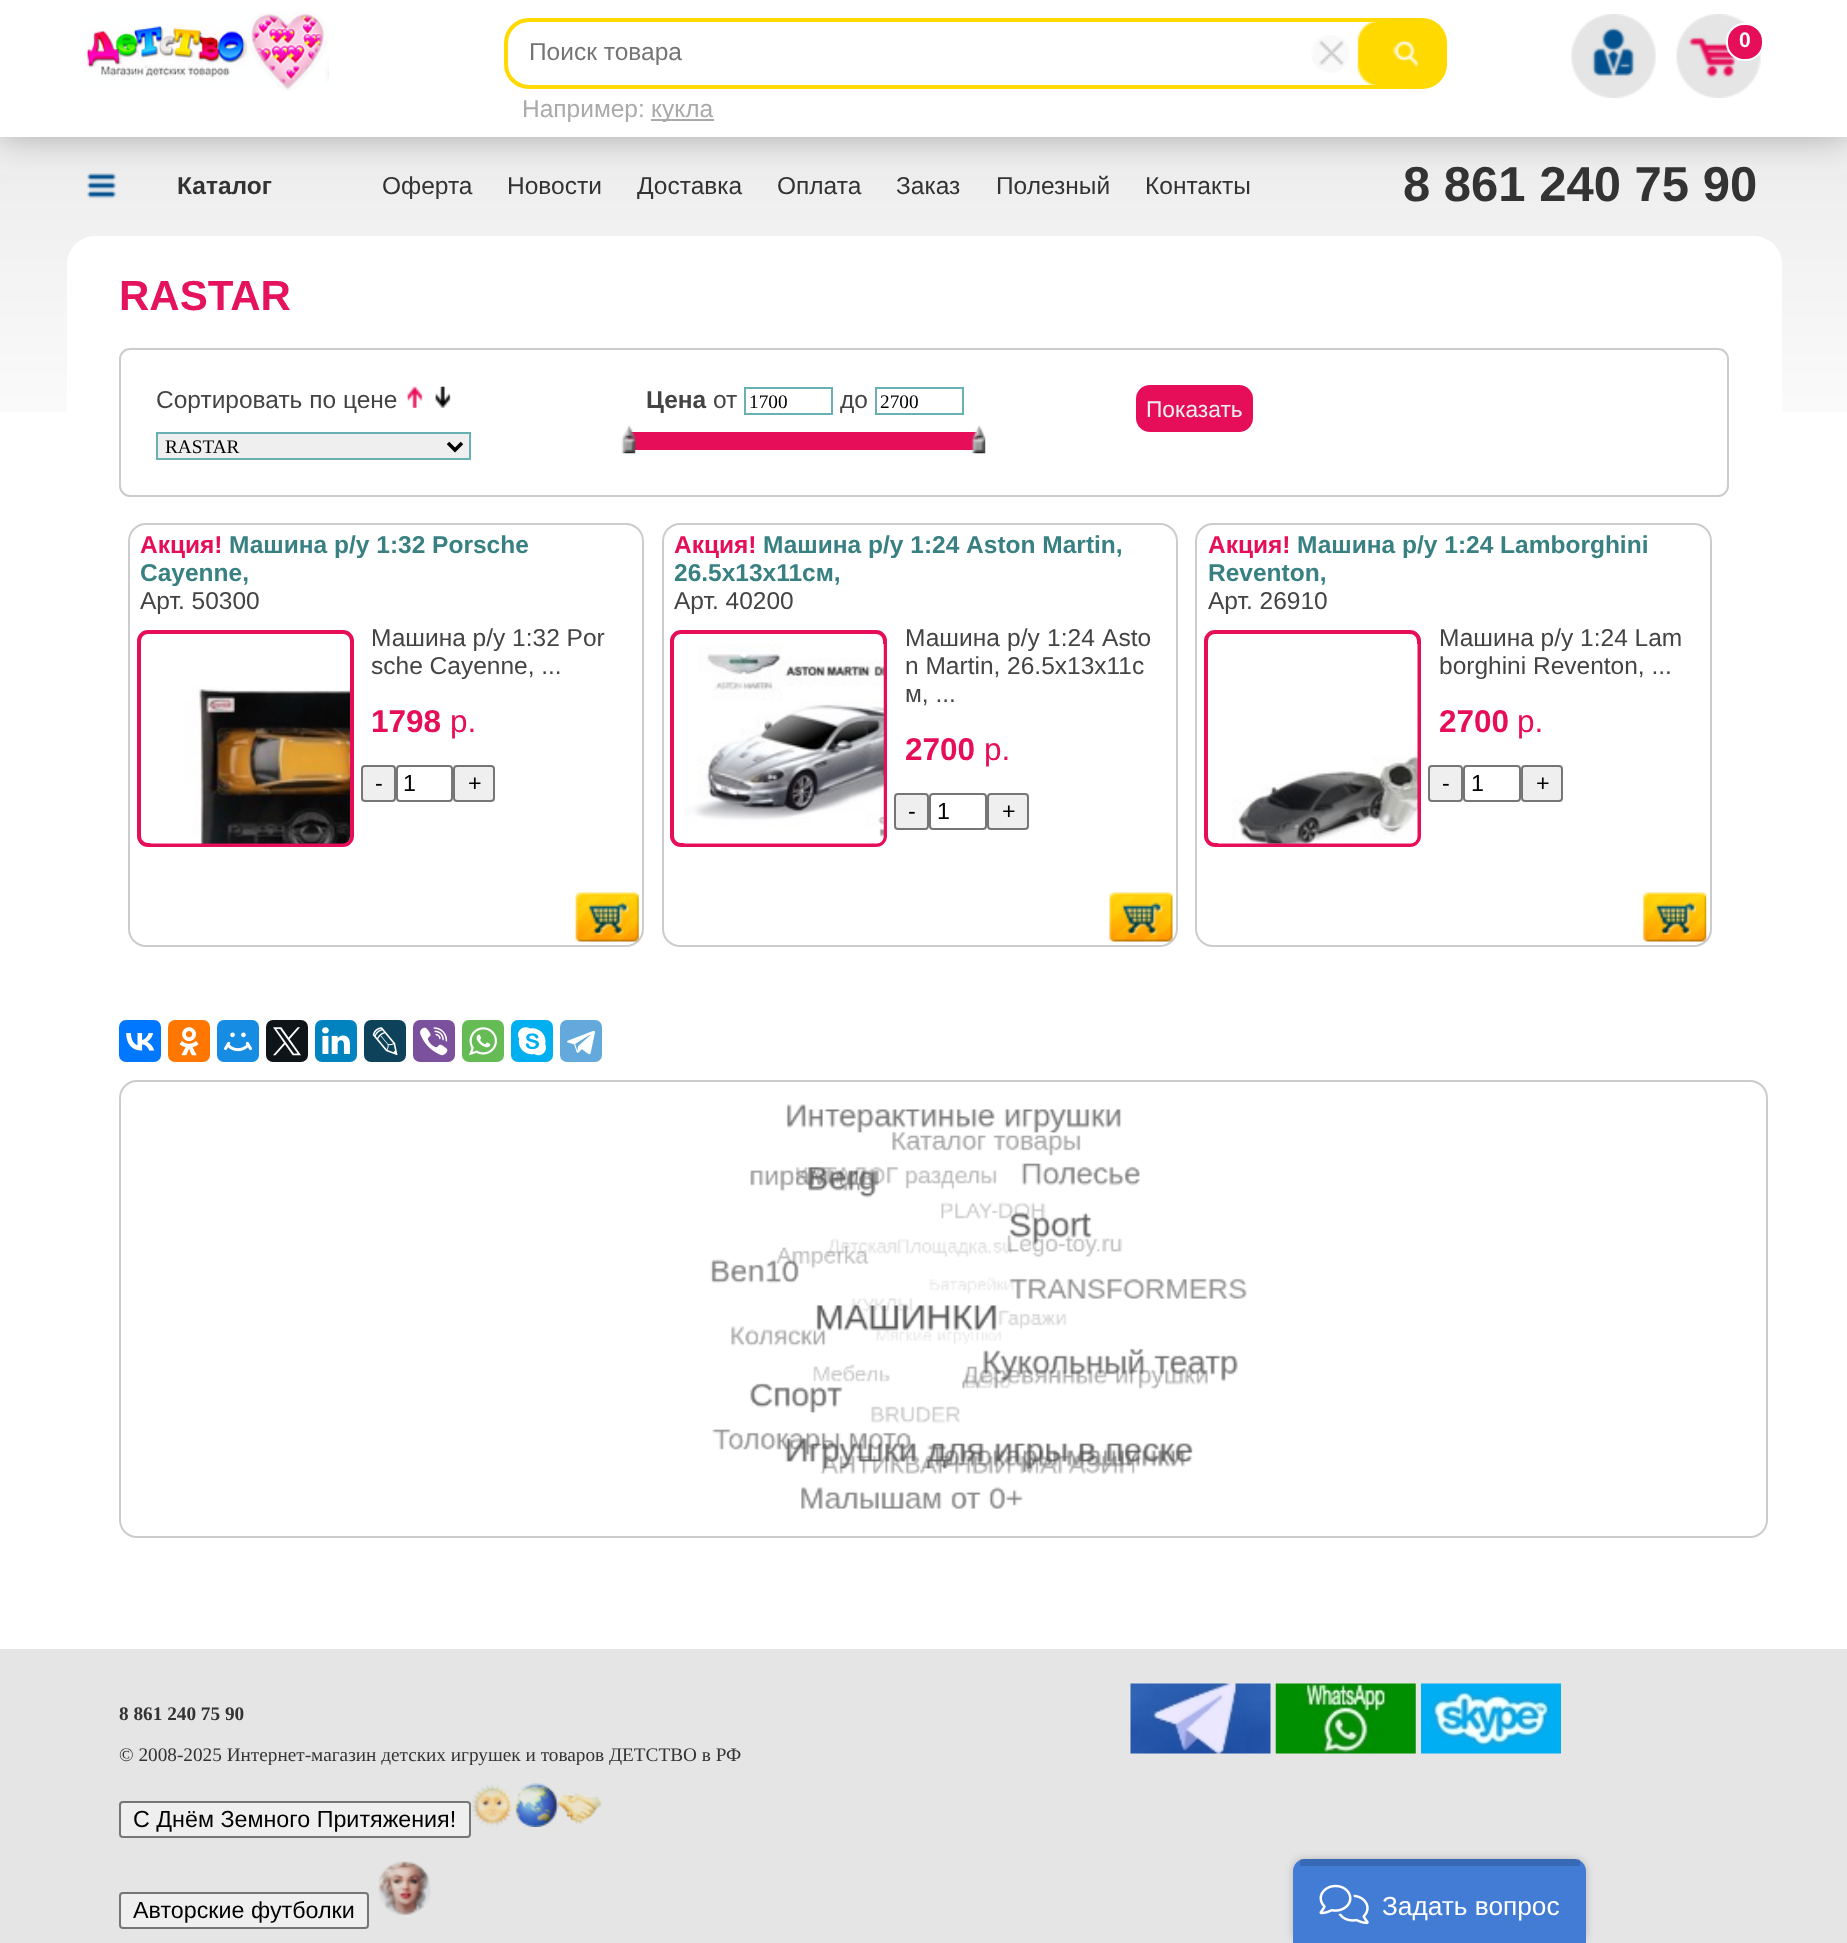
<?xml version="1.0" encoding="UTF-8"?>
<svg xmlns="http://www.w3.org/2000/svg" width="1847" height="1943">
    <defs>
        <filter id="blur1" x="-50%" y="-200%" width="200%" height="500%"><feGaussianBlur stdDeviation="17.5"/></filter>
        <filter id="blur2" x="-50%" y="-200%" width="200%" height="500%"><feGaussianBlur stdDeviation="4.5"/></filter>
    </defs>
    <rect width="100%" height="100%" fill="#FFFFFF"/>
    <image x="0" y="137" width="1847" height="275" href="img_01.png"/>
    <image x="87" y="173" width="29" height="26" href="img_07.png"/>
    <rect x="0" y="0" width="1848" height="137" fill="#AAAAAA" filter="url(#blur1)"/>
    <rect x="0" y="0" width="1847" height="137" fill="#FFFFFF"/>
    <image x="84" y="12" width="245" height="79" href="img_02.png"/>
    <image x="1571" y="14" width="85" height="84" href="img_03.png"/>
    <image x="1676" y="14" width="85" height="84" href="img_04.png"/>
    <rect x="1727" y="24" width="36" height="36" rx="17" fill="#E60D59" stroke="#FFFFFF" stroke-width="2"/>
    <text x="1739" y="47" font-family="Liberation Sans" font-size="21" font-weight="700" fill="#FFFFFF">0</text>
    <rect x="506" y="20" width="939" height="67" rx="23" fill="none" stroke="#FFD900" stroke-width="4"/>
    <text x="529" y="60" font-family="Liberation Sans" font-size="24.5" fill="#757575">Поиск товара</text>
    <image x="1311" y="35" width="38" height="38" href="img_05.png"/>
    <image x="1357" y="22" width="86" height="63" href="img_06.png"/>
    <text x="522" y="117" font-family="Liberation Sans" font-size="24.5" fill="#AAAAAA">Например:</text>
    <rect x="651" y="119" width="63" height="2" fill="#AAAAAA"/>
    <text x="651" y="117" font-family="Liberation Sans" font-size="24.5" fill="#AAAAAA">кукла</text>
    <text x="177" y="194" font-family="Liberation Sans" font-size="24.5" font-weight="700" fill="#333333">Каталог</text>
    <text x="382" y="194" font-family="Liberation Sans" font-size="24.5" fill="#333333">Оферта</text>
    <text x="507" y="194" font-family="Liberation Sans" font-size="24.5" fill="#333333">Новости</text>
    <text x="637" y="194" font-family="Liberation Sans" font-size="24.5" fill="#333333">Доставка</text>
    <text x="777" y="194" font-family="Liberation Sans" font-size="24.5" fill="#333333">Оплата</text>
    <text x="896" y="194" font-family="Liberation Sans" font-size="24.5" fill="#333333">Заказ</text>
    <text x="996" y="194" font-family="Liberation Sans" font-size="24.5" fill="#333333">Полезный</text>
    <text x="1145" y="194" font-family="Liberation Sans" font-size="24.5" fill="#333333">Контакты</text>
    <text x="1403" y="201" font-family="Liberation Sans" font-size="49" font-weight="700" fill="#333333">8 861 240 75 90</text>
    <rect x="67" y="236" width="1715" height="1308" rx="28" fill="#FFFFFF"/>
    <text x="119" y="310" font-family="Liberation Sans" font-size="42" font-weight="700" fill="#E5135D">RASTAR</text>
    <rect x="120" y="349" width="1608" height="147" rx="10" fill="none" stroke="#CCCCCC" stroke-width="2"/>
    <text x="156" y="408" font-family="Liberation Sans" font-size="24.5" fill="#444444">Сортировать по цене</text>
    <image x="407" y="386" width="16" height="22" href="img_08.png"/>
    <image x="435" y="386" width="16" height="22" href="img_09.png"/>
    <rect x="157" y="433" width="313" height="26" fill="#EFEFEF" stroke="#68B0B2" stroke-width="2"/>
    <path d="M 448 443 L 455 450 L 462 443" fill="none" stroke="#000000" stroke-width="3.5"/>
    <text x="165" y="453" font-family="Liberation Serif" font-size="19.25" fill="#000000">RASTAR</text>
    <text x="646" y="408" font-family="Liberation Sans" font-size="24.5" font-weight="700" fill="#444444">Цена</text>
    <text x="713" y="408" font-family="Liberation Sans" font-size="24.5" fill="#444444">от</text>
    <rect x="745" y="388" width="87" height="26" fill="none" stroke="#68B0B2" stroke-width="2"/>
    <text x="749" y="408" font-family="Liberation Serif" font-size="19.25" fill="#000000">1700</text>
    <text x="840" y="408" font-family="Liberation Sans" font-size="24.5" fill="#444444">до</text>
    <rect x="876" y="388" width="87" height="26" fill="none" stroke="#68B0B2" stroke-width="2"/>
    <text x="880" y="408" font-family="Liberation Serif" font-size="19.25" fill="#000000">2700</text>
    <rect x="628" y="432" width="350" height="18" fill="#E60D59"/>
    <image x="621" y="425" width="15" height="29" href="img_10.png"/>
    <image x="971" y="425" width="15" height="29" href="img_11.png"/>
    <rect x="1136" y="385" width="117" height="47" rx="14" fill="#E60D59"/>
    <text x="1146" y="417" font-family="Liberation Sans" font-size="22.75" fill="#EEEEEE">Показать</text>
    <rect x="129" y="524" width="514" height="422" rx="17" fill="none" stroke="#CCCCCC" stroke-width="2"/>
    <text x="140" y="553" font-family="Liberation Sans" font-size="24.5" font-weight="700" fill="#E60D59">Акция!</text>
    <text x="229" y="553" font-family="Liberation Sans" font-size="24.5" font-weight="700" fill="#388082">Машина р/у 1:32 Porsche</text>
    <text x="140" y="581" font-family="Liberation Sans" font-size="24.5" font-weight="700" fill="#388082">Cayenne,</text>
    <text x="140" y="609" font-family="Liberation Sans" font-size="24.5" fill="#444444">Арт. 50300</text>
    <rect x="139" y="632" width="213" height="213" rx="9" fill="none" stroke="#E60D59" stroke-width="4"/>
    <image x="150" y="687" width="200" height="157" href="img_12.png"/>
    <text font-family="Liberation Sans" font-size="24.5" fill="#444444">
        <tspan x="371" y="646">Машина р/у 1:32 Por</tspan>
        <tspan x="371" y="674">sche Cayenne, ...</tspan>
    </text>
    <text x="371" y="732" font-family="Liberation Sans" font-size="31.5" font-weight="700" fill="#E60D59">1798</text>
    <text x="450" y="732" font-family="Liberation Sans" font-size="31.5" fill="#E60D59">р.</text>
    <rect x="362" y="766" width="33" height="35" rx="3" fill="#EFEFEF" stroke="#767676" stroke-width="2"/>
    <text x="375" y="791" font-family="Liberation Sans" font-size="23.3" fill="#000000">-</text>
    <rect x="397" y="766" width="55" height="35" rx="3" fill="none" stroke="#767676" stroke-width="2"/>
    <text x="403" y="791" font-family="Liberation Sans" font-size="23.3" fill="#000000">1</text>
    <rect x="454" y="766" width="40" height="35" rx="3" fill="#EFEFEF" stroke="#767676" stroke-width="2"/>
    <text x="468" y="791" font-family="Liberation Sans" font-size="23.3" fill="#000000">+</text>
    <image x="575" y="892" width="64" height="50" href="img_13.png"/>
    <rect x="663" y="524" width="514" height="422" rx="17" fill="none" stroke="#CCCCCC" stroke-width="2"/>
    <text x="674" y="553" font-family="Liberation Sans" font-size="24.5" font-weight="700" fill="#E60D59">Акция!</text>
    <text x="763" y="553" font-family="Liberation Sans" font-size="24.5" font-weight="700" fill="#388082">Машина р/у 1:24 Aston Martin,</text>
    <text x="674" y="581" font-family="Liberation Sans" font-size="24.5" font-weight="700" fill="#388082">26.5х13х11см,</text>
    <text x="674" y="609" font-family="Liberation Sans" font-size="24.5" fill="#444444">Арт. 40200</text>
    <rect x="672" y="632" width="213" height="213" rx="9" fill="none" stroke="#E60D59" stroke-width="4"/>
    <image x="684" y="644" width="200" height="200" href="img_14.png"/>
    <text font-family="Liberation Sans" font-size="24.5" fill="#444444">
        <tspan x="905" y="646" word-spacing="0.5">Машина р/у 1:24 Asto</tspan>
        <tspan x="905" y="674">n Martin, 26.5х13х11с</tspan>
        <tspan x="905" y="702">м, ...</tspan>
    </text>
    <text x="905" y="760" font-family="Liberation Sans" font-size="31.5" font-weight="700" fill="#E60D59">2700</text>
    <text x="984" y="760" font-family="Liberation Sans" font-size="31.5" fill="#E60D59">р.</text>
    <rect x="895" y="794" width="33" height="35" rx="3" fill="#EFEFEF" stroke="#767676" stroke-width="2"/>
    <text x="908" y="819" font-family="Liberation Sans" font-size="23.3" fill="#000000">-</text>
    <rect x="930" y="794" width="56" height="35" rx="3" fill="none" stroke="#767676" stroke-width="2"/>
    <text x="937" y="819" font-family="Liberation Sans" font-size="23.3" fill="#000000">1</text>
    <rect x="988" y="794" width="40" height="35" rx="3" fill="#EFEFEF" stroke="#767676" stroke-width="2"/>
    <text x="1002" y="819" font-family="Liberation Sans" font-size="23.3" fill="#000000">+</text>
    <image x="1109" y="892" width="64" height="50" href="img_15.png"/>
    <rect x="1196" y="524" width="515" height="422" rx="17" fill="none" stroke="#CCCCCC" stroke-width="2"/>
    <text x="1208" y="553" font-family="Liberation Sans" font-size="24.5" font-weight="700" fill="#E60D59">Акция!</text>
    <text x="1297" y="553" font-family="Liberation Sans" font-size="24.5" font-weight="700" fill="#388082">Машина р/у 1:24 Lamborghini</text>
    <text x="1208" y="581" font-family="Liberation Sans" font-size="24.5" font-weight="700" fill="#388082">Reventon,</text>
    <text x="1208" y="609" font-family="Liberation Sans" font-size="24.5" fill="#444444">Арт. 26910</text>
    <rect x="1206" y="632" width="213" height="213" rx="9" fill="none" stroke="#E60D59" stroke-width="4"/>
    <image x="1218" y="644" width="200" height="200" href="img_16.png"/>
    <text font-family="Liberation Sans" font-size="24.5" fill="#444444">
        <tspan x="1439" y="646">Машина р/у 1:24 Lam</tspan>
        <tspan x="1439" y="674">borghini Reventon, ...</tspan>
    </text>
    <text x="1439" y="732" font-family="Liberation Sans" font-size="31.5" font-weight="700" fill="#E60D59">2700</text>
    <text x="1517" y="732" font-family="Liberation Sans" font-size="31.5" fill="#E60D59">р.</text>
    <rect x="1429" y="766" width="33" height="35" rx="3" fill="#EFEFEF" stroke="#767676" stroke-width="2"/>
    <text x="1442" y="791" font-family="Liberation Sans" font-size="23.3" fill="#000000">-</text>
    <rect x="1464" y="766" width="56" height="35" rx="3" fill="none" stroke="#767676" stroke-width="2"/>
    <text x="1471" y="791" font-family="Liberation Sans" font-size="23.3" fill="#000000">1</text>
    <rect x="1522" y="766" width="40" height="35" rx="3" fill="#EFEFEF" stroke="#767676" stroke-width="2"/>
    <text x="1536" y="791" font-family="Liberation Sans" font-size="23.3" fill="#000000">+</text>
    <image x="1642" y="892" width="65" height="50" href="img_17.png"/>
    <rect x="119" y="1020" width="42" height="42" rx="7" fill="#0077FF"/>
    <image x="126" y="1033" width="29" height="18" href="img_18.png"/>
    <rect x="168" y="1020" width="42" height="42" rx="7" fill="#FF7700"/>
    <image x="179" y="1027" width="20" height="29" href="img_19.png"/>
    <rect x="217" y="1020" width="42" height="42" rx="7" fill="#168DE2"/>
    <image x="224" y="1032" width="28" height="20" href="img_20.png"/>
    <rect x="266" y="1020" width="42" height="42" rx="7" fill="#0F1419"/>
    <image x="273" y="1027" width="28" height="29" href="img_21.png"/>
    <rect x="315" y="1020" width="42" height="42" rx="7" fill="#0083BE"/>
    <image x="322" y="1027" width="28" height="27" href="img_22.png"/>
    <rect x="364" y="1020" width="42" height="42" rx="7" fill="#0D425A"/>
    <image x="372" y="1027" width="26" height="29" href="img_23.png"/>
    <rect x="413" y="1020" width="42" height="42" rx="7" fill="#7B519D"/>
    <image x="420" y="1027" width="28" height="29" href="img_24.png"/>
    <rect x="462" y="1020" width="42" height="42" rx="7" fill="#65BC54"/>
    <image x="469" y="1027" width="28" height="29" href="img_25.png"/>
    <rect x="511" y="1020" width="42" height="42" rx="7" fill="#00AFF0"/>
    <image x="518" y="1027" width="28" height="29" href="img_26.png"/>
    <rect x="560" y="1020" width="42" height="42" rx="7" fill="#64A9DC"/>
    <image x="567" y="1030" width="28" height="25" href="img_27.png"/>
    <rect x="120" y="1081" width="1647" height="456" rx="17" fill="none" stroke="#CCCCCC" stroke-width="2"/>
    <image x="710" y="1104" width="537" height="405" href="img_28.png"/>
    <rect x="0" y="1649" width="1847" height="294" fill="#E5E5E5"/>
    <text x="119" y="1720" font-family="Liberation Serif" font-size="19.25" font-weight="700" fill="#333333">8 861 240 75 90</text>
    <text x="119" y="1761" font-family="Liberation Serif" font-size="19.25" fill="#333333">© 2008-2025 Интернет-магазин детских игрушек и товаров ДЕТСТВО в РФ</text>
    <rect x="120" y="1802" width="350" height="35" rx="3" fill="#EFEFEF" stroke="#767676" stroke-width="2"/>
    <text x="133" y="1827" font-family="Liberation Sans" font-size="23.3" fill="#000000">С Днём Земного Притяжения!</text>
    <image x="471" y="1783" width="131" height="44" href="img_29.png"/>
    <rect x="120" y="1893" width="248" height="35" rx="3" fill="#EFEFEF" stroke="#767676" stroke-width="2"/>
    <text x="133" y="1918" font-family="Liberation Sans" font-size="23.3" fill="#000000">Авторские футболки</text>
    <image x="378" y="1861" width="53" height="54" href="img_30.png"/>
    <image x="1130" y="1683" width="141" height="71" href="img_31.png"/>
    <image x="1275" y="1683" width="141" height="71" href="img_32.png"/>
    <image x="1421" y="1683" width="140" height="71" href="img_33.png"/>
    <rect x="1293" y="1859" width="293" height="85" rx="12" fill="#000000" fill-opacity="0.2" filter="url(#blur2)"/>
    <path d="M 1305 1859 H 1574 C 1580.5 1859 1586 1864.5 1586 1871 V 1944 H 1293 V 1871 C 1293 1864.5 1298.5 1859 1305 1859 Z" fill="#427CD4"/>
    <rect x="1300" y="1859" width="280" height="7" fill="#000000" fill-opacity="0.15"/>
    <image x="1319" y="1884" width="50" height="41" href="img_34.png"/>
    <text x="1382" y="1915" font-family="Liberation Sans" font-size="26.25" fill="#FFFFFF">Задать вопрос</text>
</svg>
